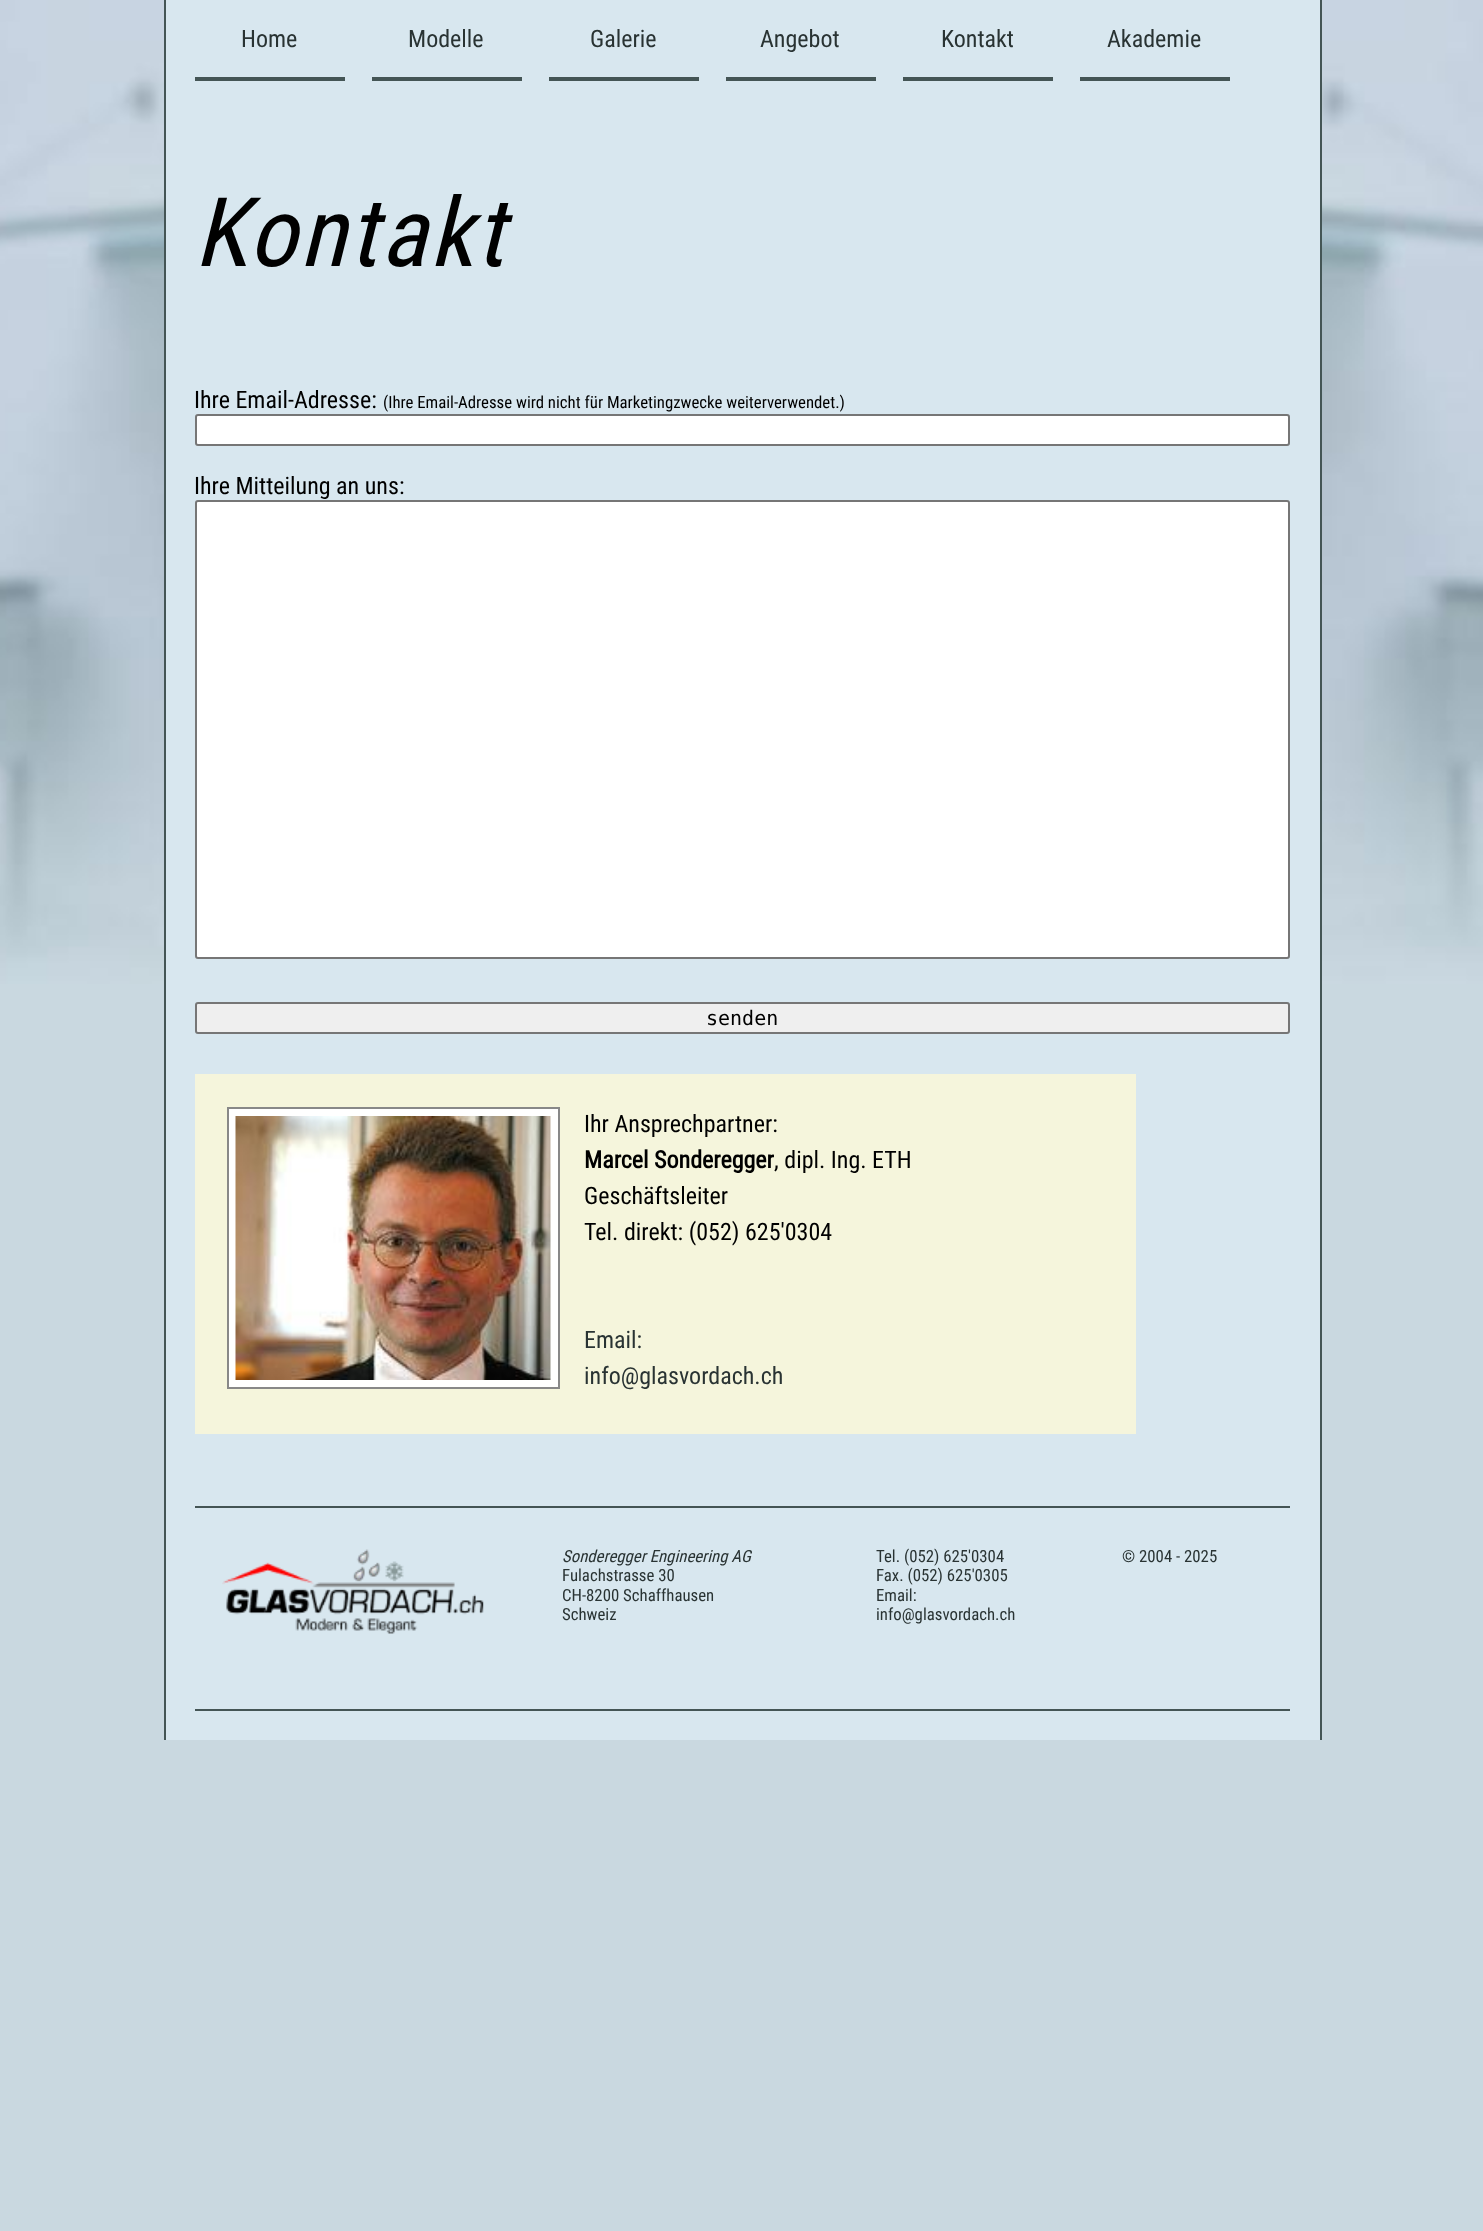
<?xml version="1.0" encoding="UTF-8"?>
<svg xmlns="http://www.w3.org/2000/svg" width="1483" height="2231">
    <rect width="100%" height="100%" fill="#C9D8E0"/>
    <image x="0" y="0" width="1483" height="984" href="img_01.png"/>
    <rect x="166" y="0" width="1154" height="1740" fill="#D8E7EF"/>
    <rect x="1320" y="0" width="2" height="1740" fill="#445555"/>
    <rect x="164" y="0" width="2" height="1740" fill="#445555"/>
    <rect x="195" y="77" width="150" height="4" fill="#445555"/>
    <text x="241" y="47" font-family="Roboto Condensed" font-size="24" fill="#293333">Home</text>
    <rect x="372" y="77" width="150" height="4" fill="#445555"/>
    <text x="408" y="47" font-family="Roboto Condensed" font-size="24" fill="#293333">Modelle</text>
    <rect x="549" y="77" width="150" height="4" fill="#445555"/>
    <text x="590" y="47" font-family="Roboto Condensed" font-size="24" fill="#293333">Galerie</text>
    <rect x="726" y="77" width="150" height="4" fill="#445555"/>
    <text x="760" y="47" font-family="Roboto Condensed" font-size="24" fill="#293333">Angebot</text>
    <rect x="903" y="77" width="150" height="4" fill="#445555"/>
    <text x="941" y="47" font-family="Roboto Condensed" font-size="24" fill="#293333">Kontakt</text>
    <rect x="1080" y="77" width="150" height="4" fill="#445555"/>
    <text x="1107" y="47" font-family="Roboto Condensed" font-size="24" fill="#293333">Akademie</text>
    <text x="194" y="266" font-family="Roboto Condensed" font-size="96" font-style="italic" letter-spacing="3" fill="#000000">Kontakt</text>
    <text x="194" y="408" font-family="Roboto Condensed" font-size="24" fill="#000000">Ihre Email-Adresse:</text>
    <text x="383" y="408" font-family="Roboto Condensed" font-size="16.8" fill="#000000">(Ihre Email-Adresse wird nicht für Marketingzwecke weiterverwendet.)</text>
    <rect x="196" y="415" width="1093" height="30" rx="2" fill="#FFFFFF" stroke="#767676" stroke-width="2"/>
    <text x="194" y="494" font-family="Roboto Condensed" font-size="24" fill="#000000">Ihre Mitteilung an uns:</text>
    <rect x="196" y="501" width="1093" height="457" rx="2" fill="#FFFFFF" stroke="#767676" stroke-width="2"/>
    <rect x="196" y="1003" width="1093" height="30" rx="2" fill="#EFEFEF" stroke="#767676" stroke-width="2"/>
    <text x="706" y="1025" font-family="DejaVu Sans Mono" font-size="20" fill="#000000">senden</text>
    <rect x="195" y="1074" width="941" height="360" fill="#F5F5DC"/>
    <rect x="228" y="1108" width="331" height="280" fill="#FFFFFF" stroke="#888888" stroke-width="2"/>
    <image x="235" y="1116" width="316" height="264" href="img_02.png"/>
    <text x="584" y="1132" font-family="Roboto Condensed" font-size="24" fill="#000000">Ihr Ansprechpartner:</text>
    <text x="584" y="1168" font-family="Roboto Condensed" font-size="24" font-weight="700" fill="#000000">Marcel Sonderegger</text>
    <text x="774" y="1168" font-family="Roboto Condensed" font-size="24" fill="#000000">, dipl. Ing. ETH</text>
    <text font-family="Roboto Condensed" font-size="24" fill="#000000">
        <tspan x="584" y="1204">Geschäftsleiter</tspan>
        <tspan x="584" y="1240">Tel. direkt: (052) 625'0304</tspan>
    </text>
    <text font-family="Roboto Condensed" font-size="24" fill="#293333">
        <tspan x="584" y="1348">Email:</tspan>
        <tspan x="584" y="1384">info@glasvordach.ch</tspan>
    </text>
    <rect x="195" y="1506" width="1095" height="2" fill="#445555"/>
    <rect x="195" y="1709" width="1095" height="2" fill="#445555"/>
    <image x="222" y="1549" width="262" height="85" href="img_03.png"/>
    <text x="562" y="1562" font-family="Roboto Condensed" font-size="16.8" font-style="italic" fill="#293333">Sonderegger Engineering AG</text>
    <text font-family="Roboto Condensed" font-size="16.8" fill="#293333">
        <tspan x="562" y="1581">Fulachstrasse 30</tspan>
        <tspan x="562" y="1601">CH-8200 Schaffhausen</tspan>
        <tspan x="562" y="1620">Schweiz</tspan>
    </text>
    <text font-family="Roboto Condensed" font-size="16.8" fill="#293333">
        <tspan x="876" y="1562">Tel. (052) 625'0304</tspan>
        <tspan x="876" y="1581">Fax. (052) 625'0305</tspan>
        <tspan x="876" y="1601">Email:</tspan>
        <tspan x="876" y="1620">info@glasvordach.ch</tspan>
    </text>
    <text x="1122" y="1562" font-family="Roboto Condensed" font-size="16.8" fill="#293333">© 2004 - 2025</text>
</svg>
